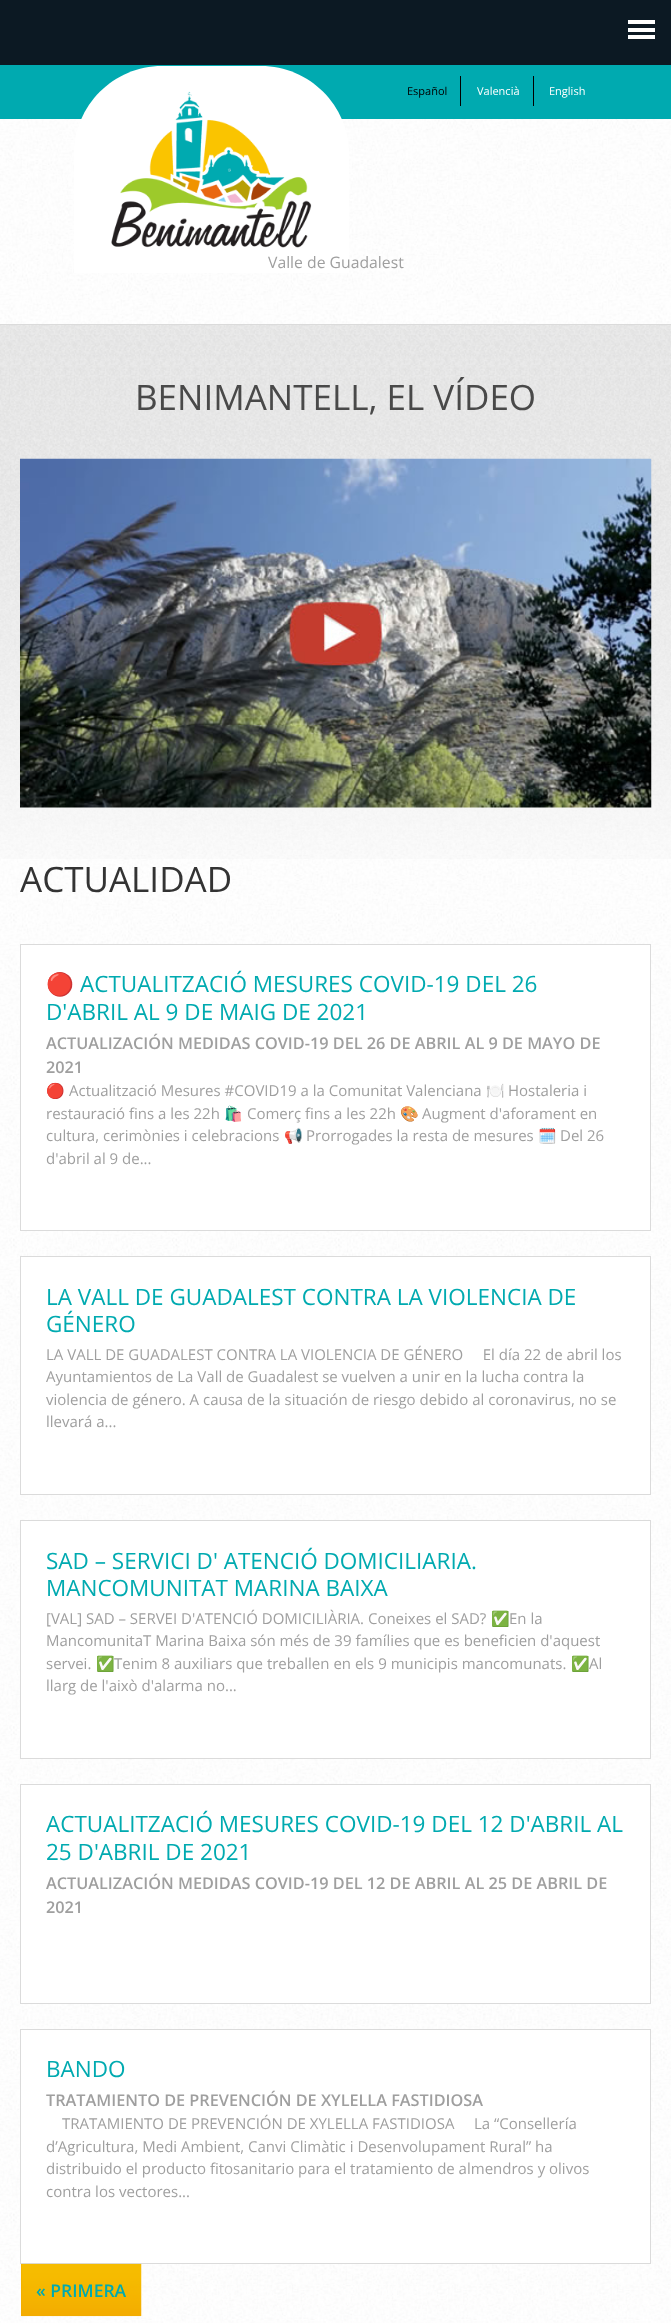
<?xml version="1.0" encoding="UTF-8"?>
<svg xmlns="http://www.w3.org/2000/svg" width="671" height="2323">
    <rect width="100%" height="100%" fill="#FFFFFF"/>
    <rect x="0" y="0" width="671" height="65" fill="#0C1923"/>
    <rect x="628" y="20" width="27" height="4" fill="#FFFFFF"/>
    <rect x="628" y="28" width="27" height="4" fill="#FFFFFF"/>
    <rect x="628" y="35" width="27" height="4" fill="#FFFFFF"/>
    <image x="0" y="119" width="671" height="205" href="img_01.png"/>
    <rect x="0" y="65" width="671" height="54" fill="#00AAB0"/>
    <rect x="460" y="76" width="1" height="30" fill="#000000"/>
    <text x="407" y="95" font-family="Open Sans" font-size="11" fill="#000000">Español</text>
    <rect x="533" y="76" width="1" height="30" fill="#000000"/>
    <text x="477" y="95" font-family="Open Sans" font-size="11" fill="#FFFFFF">Valencià</text>
    <text x="549" y="95" font-family="Open Sans" font-size="11" fill="#FFFFFF">English</text>
    <rect x="0" y="324" width="671" height="1" fill="#DBDBDB"/>
    <path d="M 162 66 H 261 C 309.5 66 349 105.5 349 154 V 273 H 74 V 154 C 74 105.5 113.5 66 162 66 Z" fill="#FFFFFF"/>
    <image x="111" y="91" width="201" height="157" href="img_02.png"/>
    <text x="268" y="268" font-family="Open Sans" font-size="15.75" fill="#9F9F9F">Valle de Guadalest</text>
    <image x="0" y="337" width="671" height="1986" href="img_03.png"/>
    <image x="0" y="325" width="671" height="534" href="img_04.png"/>
    <text x="135" y="410" font-family="Open Sans" font-size="35" fill="#494949">BENIMANTELL, EL VÍDEO</text>
    <image x="20" y="458" width="632" height="350" href="img_05.png"/>
    <text x="20" y="892" font-family="Open Sans" font-size="35" fill="#333333">ACTUALIDAD</text>
    <rect x="20.5" y="944.5" width="630" height="286" fill="#FFFFFF" stroke="#DBDBDB"/>
    <text x="46" y="992" font-family="Noto Color Emoji" font-size="22.5" fill="#00AAB0">🔴</text>
    <text x="80" y="992" font-family="Open Sans" font-size="22.5" fill="#00AAB0">ACTUALITZACIÓ MESURES COVID-19 DEL 26</text>
    <text x="46" y="1020" font-family="Open Sans" font-size="22.5" fill="#00AAB0">D'ABRIL AL 9 DE MAIG DE 2021</text>
    <text font-family="Open Sans" font-size="16.25" font-weight="600" fill="#9F9F9F">
        <tspan x="46" y="1049">ACTUALIZACIÓN MEDIDAS COVID-19 DEL 26 DE ABRIL AL 9 DE MAYO DE</tspan>
        <tspan x="46" y="1073">2021</tspan>
    </text>
    <text x="46" y="1096" font-family="Noto Color Emoji" font-size="15" fill="#9F9F9F">🔴</text>
    <text x="69" y="1096" font-family="Open Sans" font-size="15" fill="#9F9F9F">Actualització Mesures #COVID19 a la Comunitat Valenciana</text>
    <text x="486" y="1096" font-family="Noto Color Emoji" font-size="15" fill="#9F9F9F">🍽</text>
    <text x="508" y="1096" font-family="Open Sans" font-size="15" fill="#9F9F9F">Hostaleria i</text>
    <text x="46" y="1119" font-family="Open Sans" font-size="15" fill="#9F9F9F">restauració fins a les 22h</text>
    <text x="224" y="1119" font-family="Noto Color Emoji" font-size="15" fill="#9F9F9F">🛍️</text>
    <text x="247" y="1119" font-family="Open Sans" font-size="15" fill="#9F9F9F">Comerç fins a les 22h</text>
    <text x="400" y="1119" font-family="Noto Color Emoji" font-size="15" fill="#9F9F9F">🎨</text>
    <text x="422" y="1119" font-family="Open Sans" font-size="15" fill="#9F9F9F">Augment d'aforament en</text>
    <text x="46" y="1141" font-family="Open Sans" font-size="15" fill="#9F9F9F">cultura, cerimònies i celebracions</text>
    <text x="284" y="1141" font-family="Noto Color Emoji" font-size="15" fill="#9F9F9F">📢</text>
    <text x="306" y="1141" font-family="Open Sans" font-size="15" fill="#9F9F9F">Prorrogades la resta de mesures</text>
    <text x="538" y="1141" font-family="Noto Color Emoji" font-size="15" fill="#9F9F9F">🗓️</text>
    <text x="560" y="1141" font-family="Open Sans" font-size="15" fill="#9F9F9F">Del 26</text>
    <text x="46" y="1164" font-family="Open Sans" font-size="15" fill="#9F9F9F">d'abril al 9 de...</text>
    <rect x="20.5" y="1256.5" width="630" height="238" fill="#FFFFFF" stroke="#DBDBDB"/>
    <text font-family="Open Sans" font-size="22.5" fill="#00AAB0">
        <tspan x="46" y="1305">LA VALL DE GUADALEST CONTRA LA VIOLENCIA DE</tspan>
        <tspan x="46" y="1332">GÉNERO</tspan>
    </text>
    <text font-family="Open Sans" font-size="15" fill="#9F9F9F" xml:space="preserve"><tspan x="46" y="1360">LA VALL DE GUADALEST CONTRA LA VIOLENCIA DE GÉNERO     El día 22 de abril los</tspan><tspan x="46" y="1382">Ayuntamientos de La Vall de Guadalest se vuelven a unir en la lucha contra la</tspan><tspan x="46" y="1405">violencia de género. A causa de la situación de riesgo debido al coronavirus, no se</tspan><tspan x="46" y="1427">llevará a...</tspan></text>
    <rect x="20.5" y="1520.5" width="630" height="238" fill="#FFFFFF" stroke="#DBDBDB"/>
    <text font-family="Open Sans" font-size="22.5" fill="#00AAB0">
        <tspan x="46" y="1569">SAD – SERVICI D' ATENCIÓ DOMICILIARIA.</tspan>
        <tspan x="46" y="1596">MANCOMUNITAT MARINA BAIXA</tspan>
    </text>
    <text x="46" y="1624" font-family="Open Sans" font-size="15" fill="#9F9F9F">[VAL] SAD – SERVEI D'ATENCIÓ DOMICILIÀRIA. Coneixes el SAD?</text>
    <text x="491" y="1624" font-family="Noto Color Emoji" font-size="15" fill="#9F9F9F">✅</text>
    <text x="509" y="1624" font-family="Open Sans" font-size="15" fill="#9F9F9F">En la</text>
    <text font-family="Open Sans" font-size="15" fill="#9F9F9F">
        <tspan x="46" y="1646">MancomunitaT Marina Baixa són més de 39 famílies que es beneficien d'aquest</tspan>
        <tspan x="46" y="1669">servei.</tspan>
    </text>
    <text x="96" y="1669" font-family="Noto Color Emoji" font-size="15" fill="#9F9F9F">✅</text>
    <text x="114" y="1669" font-family="Open Sans" font-size="15" fill="#9F9F9F">Tenim 8 auxiliars que treballen en els 9 municipis mancomunats.</text>
    <text x="571" y="1669" font-family="Noto Color Emoji" font-size="15" fill="#9F9F9F">✅</text>
    <text x="589" y="1669" font-family="Open Sans" font-size="15" fill="#9F9F9F">Al</text>
    <text x="46" y="1691" font-family="Open Sans" font-size="15" fill="#9F9F9F">llarg de l'això d'alarma no...</text>
    <rect x="20.5" y="1784.5" width="630" height="219" fill="#FFFFFF" stroke="#DBDBDB"/>
    <text font-family="Open Sans" font-size="22.5" fill="#00AAB0">
        <tspan x="46" y="1832">ACTUALITZACIÓ MESURES COVID-19 DEL 12 D'ABRIL AL</tspan>
        <tspan x="46" y="1860">25 D'ABRIL DE 2021</tspan>
    </text>
    <text font-family="Open Sans" font-size="16.25" font-weight="600" fill="#9F9F9F">
        <tspan x="46" y="1889">ACTUALIZACIÓN MEDIDAS COVID-19 DEL 12 DE ABRIL AL 25 DE ABRIL DE</tspan>
        <tspan x="46" y="1913">2021</tspan>
    </text>
    <rect x="20.5" y="2029.5" width="630" height="234" fill="#FFFFFF" stroke="#DBDBDB"/>
    <text x="46" y="2077" font-family="Open Sans" font-size="22.5" fill="#00AAB0">BANDO</text>
    <text x="46" y="2106" font-family="Open Sans" font-size="16.25" font-weight="600" fill="#9F9F9F">TRATAMIENTO DE PREVENCIÓN DE XYLELLA FASTIDIOSA</text>
    <text x="62" y="2129" font-family="Open Sans" font-size="15" fill="#9F9F9F">TRATAMIENTO DE PREVENCIÓN DE XYLELLA FASTIDIOSA</text>
    <text x="474" y="2129" font-family="Open Sans" font-size="15" fill="#9F9F9F">La “Consellería</text>
    <text font-family="Open Sans" font-size="15" fill="#9F9F9F">
        <tspan x="46" y="2152">d’Agricultura, Medi Ambient, Canvi Climàtic i Desenvolupament Rural” ha</tspan>
        <tspan x="46" y="2174">distribuido el producto fitosanitario para el tratamiento de almendros y olivos</tspan>
        <tspan x="46" y="2197">contra los vectores...</tspan>
    </text>
    <rect x="21" y="2264" width="1" height="52" fill="#F3AB00"/>
    <image x="21" y="2263" width="121" height="54" href="img_06.png"/>
    <text x="36" y="2297" font-family="Open Sans" font-size="17.5" font-weight="600" fill="#00AAB0">« PRIMERA</text>
</svg>
